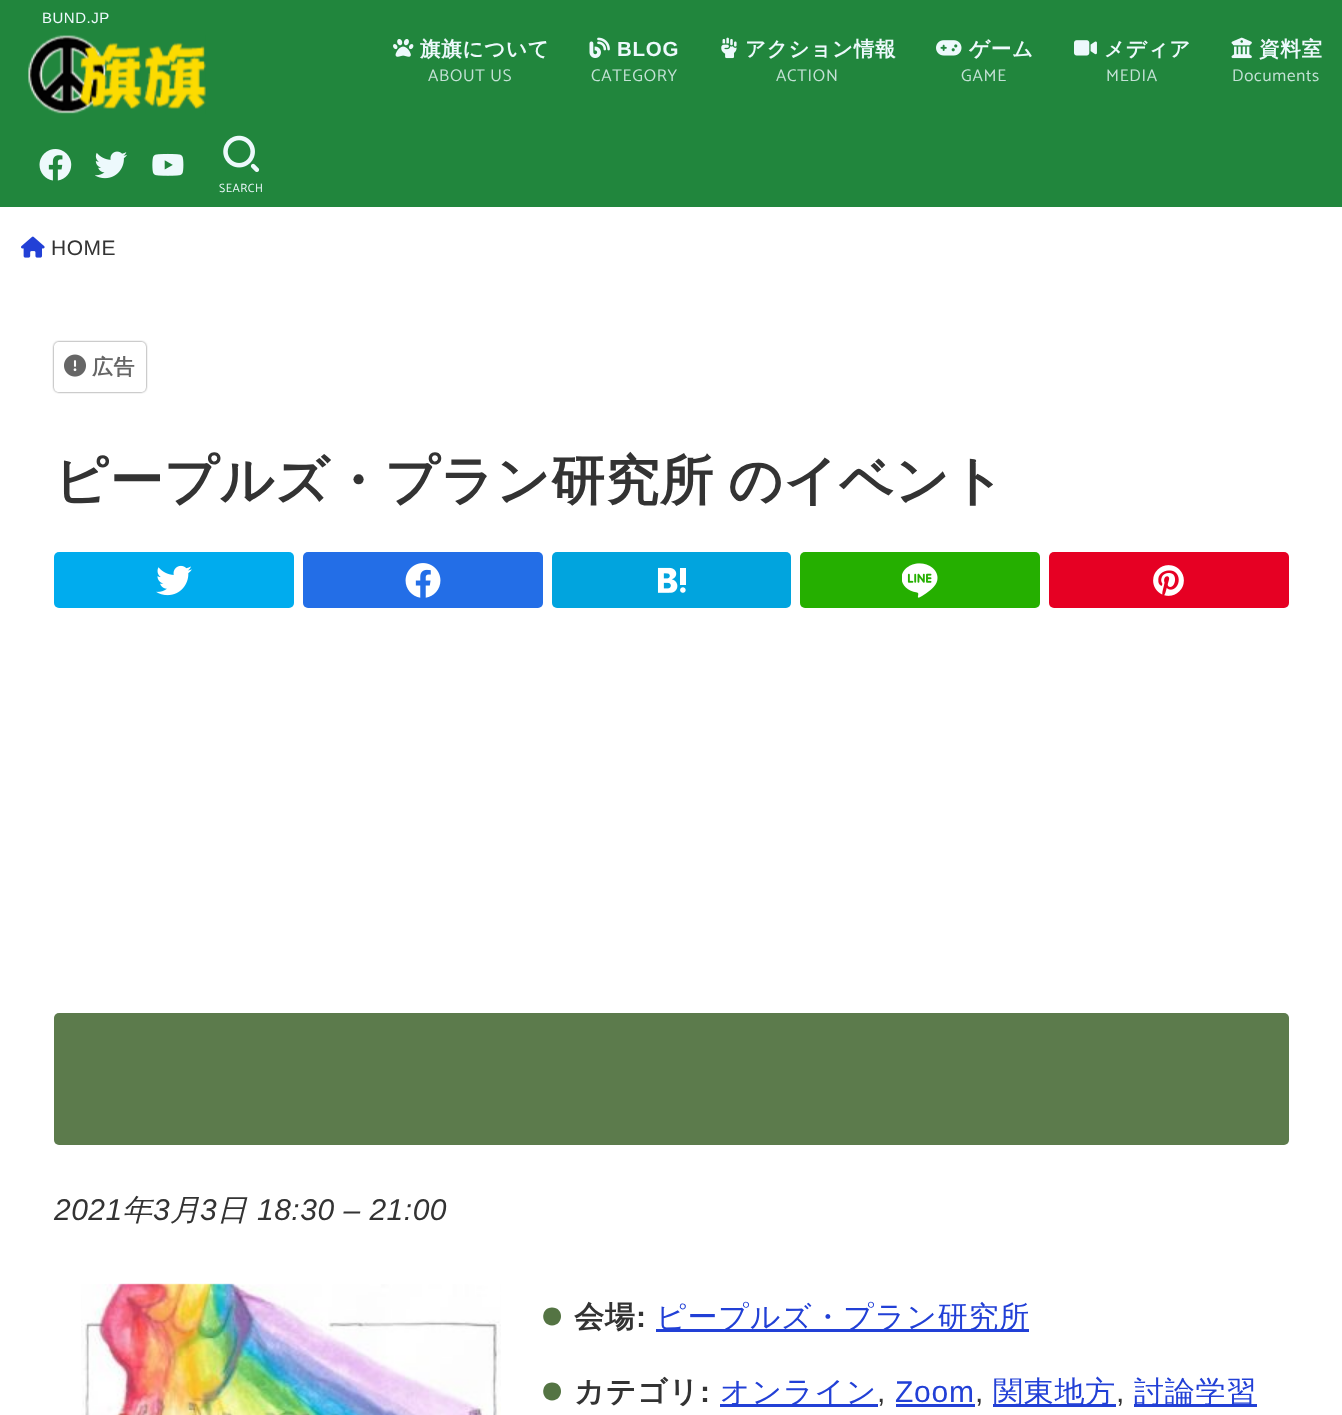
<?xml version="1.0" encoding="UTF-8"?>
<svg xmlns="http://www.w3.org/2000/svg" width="1342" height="1415">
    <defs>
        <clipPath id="clip1"><path d="M 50 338 H 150 V 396 H 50 Z M 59 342 H 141 C 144 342 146 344 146 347 V 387 C 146 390 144 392 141 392 H 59 C 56 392 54 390 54 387 V 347 C 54 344 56 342 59 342 Z" clip-rule="evenodd"/></clipPath>
        <filter id="blur1" x="-50%" y="-200%" width="200%" height="500%"><feGaussianBlur stdDeviation="1"/></filter>
    </defs>
    <rect width="100%" height="100%" fill="#FFFFFF"/>
    <rect x="0" y="0" width="1342" height="207" fill="#21863D"/>
    <text x="42" y="23" font-family="Liberation Sans" font-size="15" letter-spacing="0.5" fill="#EDF9FC">BUND.JP</text>
    <image x="28" y="35" width="178" height="79" href="img_01.png"/>
    <image x="393" y="39" width="21" height="18" href="img_02.png"/>
    <text x="420" y="56" font-family="WenQuanYi Zen Hei" font-size="20.5" font-weight="700" letter-spacing="0.75" fill="#EDF9FC">旗旗について</text>
    <text x="428" y="81" font-family="Catamaran" font-size="17" letter-spacing="0.75" fill="#C4E2D6">ABOUT US</text>
    <image x="589" y="37" width="21" height="21" href="img_03.png"/>
    <text x="617" y="56" font-family="Liberation Sans" font-size="20.5" font-weight="700" letter-spacing="0.75" fill="#EDF9FC">BLOG</text>
    <text x="591" y="81" font-family="Catamaran" font-size="17" letter-spacing="0.75" fill="#C4E2D6">CATEGORY</text>
    <image x="721" y="37" width="16" height="22" href="img_04.png"/>
    <text x="745" y="56" font-family="WenQuanYi Zen Hei" font-size="20.5" font-weight="700" letter-spacing="0.75" fill="#EDF9FC">アクション情報</text>
    <text x="776" y="81" font-family="Catamaran" font-size="17" letter-spacing="0.75" fill="#C4E2D6">ACTION</text>
    <image x="936" y="40" width="26" height="16" href="img_05.png"/>
    <text x="969" y="56" font-family="WenQuanYi Zen Hei" font-size="20.5" font-weight="700" letter-spacing="0.75" fill="#EDF9FC">ゲーム</text>
    <text x="961" y="81" font-family="Catamaran" font-size="17" letter-spacing="0.75" fill="#C4E2D6">GAME</text>
    <image x="1074" y="40" width="23" height="16" href="img_06.png"/>
    <text x="1104" y="56" font-family="WenQuanYi Zen Hei" font-size="20.5" font-weight="700" letter-spacing="0.75" fill="#EDF9FC">メディア</text>
    <text x="1106" y="81" font-family="Catamaran" font-size="17" letter-spacing="0.75" fill="#C4E2D6">MEDIA</text>
    <image x="1231" y="37" width="21" height="22" href="img_07.png"/>
    <text x="1259" y="56" font-family="WenQuanYi Zen Hei" font-size="20.5" font-weight="700" letter-spacing="0.75" fill="#EDF9FC">資料室</text>
    <text x="1232" y="81" font-family="Catamaran" font-size="17" letter-spacing="0.75" fill="#C4E2D6">Documents</text>
    <image x="39" y="149" width="33" height="32" href="img_08.png"/>
    <image x="95" y="151" width="32" height="28" href="img_09.png"/>
    <image x="152" y="153" width="32" height="23" href="img_10.png"/>
    <image x="223" y="135" width="37" height="37" href="img_11.png"/>
    <text x="219" y="192" font-family="Catamaran" font-size="12" letter-spacing="0.5" fill="#EDF9FC">SEARCH</text>
    <image x="21" y="236" width="24" height="22" href="img_12.png"/>
    <text x="51" y="255" font-family="Liberation Sans" font-size="21" letter-spacing="0.5" fill="#333333">HOME</text>
    <g clip-path="url(#clip1)">
        <rect x="54" y="342" width="92" height="50" rx="5" fill="#666666" filter="url(#blur1)"/>
    </g>
    <image x="64" y="354" width="22" height="23" href="img_13.png"/>
    <text x="92" y="374" font-family="WenQuanYi Zen Hei" font-size="21" font-weight="700" letter-spacing="0.5" fill="#666666">広告</text>
    <text x="54" y="499" font-family="WenQuanYi Zen Hei" font-size="53.75" font-weight="700" letter-spacing="0.5" fill="#333333">ピープルズ・プラン研究所</text>
    <text x="728" y="499" font-family="WenQuanYi Zen Hei" font-size="53.75" font-weight="700" letter-spacing="0.5" fill="#333333">のイベント</text>
    <rect x="54" y="552" width="240" height="56" rx="5" fill="#00ACEE"/>
    <image x="156" y="565" width="36" height="31" href="img_14.png"/>
    <rect x="303" y="552" width="240" height="56" rx="5" fill="#236EE7"/>
    <image x="405" y="563" width="36" height="35" href="img_15.png"/>
    <rect x="552" y="552" width="239" height="56" rx="5" fill="#01A4DE"/>
    <image x="657" y="567" width="29" height="26" href="img_16.png"/>
    <rect x="800" y="552" width="240" height="56" rx="5" fill="#25AF00"/>
    <image x="902" y="563" width="36" height="35" href="img_17.png"/>
    <rect x="1049" y="552" width="240" height="56" rx="5" fill="#E60023"/>
    <image x="1153" y="565" width="31" height="31" href="img_18.png"/>
    <rect x="54" y="1013" width="1235" height="132" rx="5" fill="#547443"/>
    <rect x="54" y="1013" width="1235" height="132" fill="#FFFFFF" fill-opacity="0.05"/>
    <text x="54" y="1220" font-family="Liberation Sans" font-size="30" font-style="italic" letter-spacing="0.5" fill="#333333">2021</text>
    <text x="122" y="1220" font-family="WenQuanYi Zen Hei" font-size="30" font-weight="500" font-style="italic" letter-spacing="0.5" fill="#333333">年</text>
    <text x="153" y="1220" font-family="Liberation Sans" font-size="30" font-style="italic" letter-spacing="0.5" fill="#333333">3</text>
    <text x="170" y="1220" font-family="WenQuanYi Zen Hei" font-size="30" font-weight="500" font-style="italic" letter-spacing="0.5" fill="#333333">月</text>
    <text x="200" y="1220" font-family="Liberation Sans" font-size="30" font-style="italic" letter-spacing="0.5" fill="#333333">3</text>
    <text x="217" y="1220" font-family="WenQuanYi Zen Hei" font-size="30" font-weight="500" font-style="italic" letter-spacing="0.5" fill="#333333">日</text>
    <text x="257" y="1220" font-family="Liberation Sans" font-size="30" font-style="italic" letter-spacing="0.5" fill="#333333">18:30 – 21:00</text>
    <image x="81" y="1283" width="420" height="132" href="img_19.png"/>
    <path d="M 552 1325.5 C 564 1325 564 1307.5 552 1307.5 C 540.5 1307.5 540 1325 552 1325.5 Z" fill="#547443"/>
    <text x="574" y="1327" font-family="WenQuanYi Zen Hei" font-size="30" font-weight="700" letter-spacing="0.75" fill="#333333">会場</text>
    <text x="636" y="1327" font-family="Liberation Sans" font-size="30" font-weight="700" letter-spacing="0.75" fill="#333333">:</text>
    <rect x="656" y="1329" width="373" height="3" fill="#2240D6"/>
    <text x="656" y="1327" font-family="WenQuanYi Zen Hei" font-size="30" font-weight="500" letter-spacing="0.75" fill="#2240D6">ピープルズ・プラン研究所</text>
    <path d="M 552 1400.5 C 564 1400 564 1382.5 552 1382.5 C 540.5 1382.5 540 1400 552 1400.5 Z" fill="#547443"/>
    <text x="574" y="1402" font-family="WenQuanYi Zen Hei" font-size="30" font-weight="700" letter-spacing="0.75" fill="#333333">カテゴリ</text>
    <text x="700" y="1402" font-family="Liberation Sans" font-size="30" font-weight="700" letter-spacing="0.75" fill="#333333">:</text>
    <rect x="720" y="1404" width="158" height="3" fill="#2240D6"/>
    <text x="720" y="1402" font-family="WenQuanYi Zen Hei" font-size="30" font-weight="500" letter-spacing="0.75" fill="#2240D6">オンライン</text>
    <text x="877" y="1402" font-family="Liberation Sans" font-size="30" letter-spacing="0.75" fill="#333333">,</text>
    <text x="895" y="1402" font-family="Liberation Sans" font-size="30" letter-spacing="0.75" fill="#2240D6">Zoom</text>
    <rect x="896" y="1404" width="79" height="3" fill="#2240D6"/>
    <text x="975" y="1402" font-family="Liberation Sans" font-size="30" letter-spacing="0.75" fill="#333333">,</text>
    <rect x="993" y="1404" width="123" height="3" fill="#2240D6"/>
    <text x="993" y="1402" font-family="WenQuanYi Zen Hei" font-size="30" font-weight="500" letter-spacing="0.75" fill="#2240D6">関東地方</text>
    <text x="1116" y="1402" font-family="Liberation Sans" font-size="30" letter-spacing="0.75" fill="#333333">,</text>
    <rect x="1134" y="1404" width="123" height="3" fill="#2240D6"/>
    <text x="1134" y="1402" font-family="WenQuanYi Zen Hei" font-size="30" font-weight="500" letter-spacing="0.75" fill="#2240D6">討論学習</text>
</svg>
